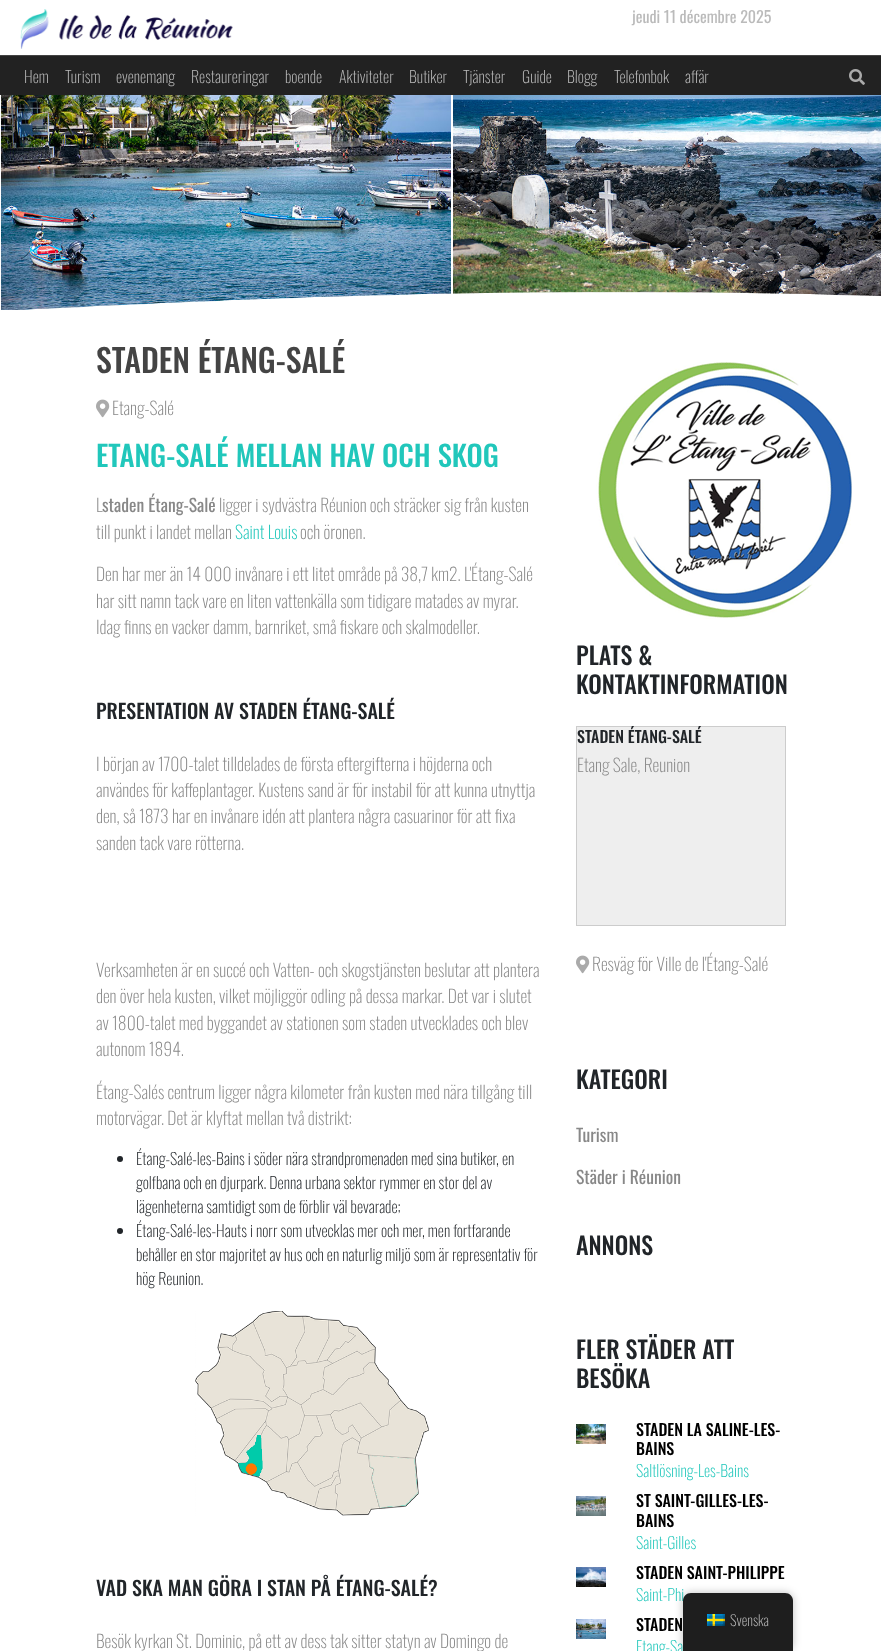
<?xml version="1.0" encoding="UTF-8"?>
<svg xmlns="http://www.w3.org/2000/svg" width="881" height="1651">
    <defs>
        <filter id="blur1" x="-50%" y="-200%" width="200%" height="500%"><feGaussianBlur stdDeviation="4"/></filter>
    </defs>
    <rect width="100%" height="100%" fill="#FFFFFF"/>
    <image x="20" y="9" width="213" height="40" href="img_01.png"/>
    <text x="632" y="23" font-family="Oswald" font-size="16" fill="#BBBBBB">jeudi 11 décembre 2025</text>
    <rect x="0" y="56" width="881" height="39" fill="#222222"/>
    <rect x="0" y="55" width="881" height="1" fill="#444444"/>
    <text x="24" y="83" font-family="Oswald" font-size="16" font-weight="200" fill="#BBBBBB">Hem</text>
    <text x="65" y="83" font-family="Oswald" font-size="16" font-weight="200" fill="#BBBBBB">Turism</text>
    <text x="116" y="83" font-family="Oswald" font-size="16" font-weight="200" fill="#BBBBBB">evenemang</text>
    <text x="191" y="83" font-family="Oswald" font-size="16" font-weight="200" fill="#BBBBBB">Restaureringar</text>
    <text x="285" y="83" font-family="Oswald" font-size="16" font-weight="200" fill="#BBBBBB">boende</text>
    <text x="339" y="83" font-family="Oswald" font-size="16" font-weight="200" fill="#BBBBBB">Aktiviteter</text>
    <text x="409" y="83" font-family="Oswald" font-size="16" font-weight="200" fill="#BBBBBB">Butiker</text>
    <text x="463" y="83" font-family="Oswald" font-size="16" font-weight="200" fill="#BBBBBB">Tjänster</text>
    <text x="522" y="83" font-family="Oswald" font-size="16" font-weight="200" fill="#BBBBBB">Guide</text>
    <text x="567" y="83" font-family="Oswald" font-size="16" font-weight="200" fill="#BBBBBB">Blogg</text>
    <text x="614" y="83" font-family="Oswald" font-size="16" font-weight="200" fill="#BBBBBB">Telefonbok</text>
    <text x="685" y="83" font-family="Oswald" font-size="16" font-weight="200" fill="#BBBBBB">affär</text>
    <image x="849" y="69" width="16" height="16" href="img_02.png"/>
    <image x="1" y="95" width="450" height="215" href="img_03.png"/>
    <image x="453" y="95" width="428" height="202" href="img_04.png"/>
    <image x="24" y="292" width="857" height="18" href="img_05.png"/>
    <text x="96" y="373" font-family="Oswald" font-size="32" font-weight="500" fill="#444444">STADEN ÉTANG-SALÉ</text>
    <image x="96" y="399" width="14" height="19" href="img_06.png"/>
    <text x="112" y="415" font-family="Oswald" font-size="17.6" font-weight="200" fill="#888888">Etang-Salé</text>
    <text x="96" y="467" font-family="Oswald" font-size="28.75" font-weight="500" fill="#21C7BB">ETANG-SALÉ MELLAN HAV OCH SKOG</text>
    <text x="96" y="512" font-family="Oswald" font-size="17.6" font-weight="200" fill="#888888">L</text>
    <text x="102" y="512" font-family="Oswald" font-size="17.6" fill="#888888">staden Étang-Salé</text>
    <text x="219" y="512" font-family="Oswald" font-size="17.6" font-weight="200" fill="#888888">ligger i sydvästra Réunion och sträcker sig från kusten</text>
    <text x="96" y="539" font-family="Oswald" font-size="17.6" font-weight="200" fill="#888888">till punkt i landet mellan</text>
    <text x="235" y="539" font-family="Oswald" font-size="17.6" font-weight="200" fill="#21C7BB">Saint Louis</text>
    <text x="300" y="539" font-family="Oswald" font-size="17.6" font-weight="200" fill="#888888">och öronen.</text>
    <text font-family="Oswald" font-size="17.6" font-weight="200" fill="#888888">
        <tspan x="96" y="581">Den har mer än 14 000 invånare i ett litet område på 38,7 km2. L'Étang-Salé</tspan>
        <tspan x="96" y="608">har sitt namn tack vare en liten vattenkälla som tidigare matades av myrar.</tspan>
        <tspan x="96" y="634">Idag finns en vacker damm, barnriket, små fiskare och skalmodeller.</tspan>
    </text>
    <text x="96" y="719" font-family="Oswald" font-size="20" font-weight="500" fill="#212529">PRESENTATION AV STADEN ÉTANG-SALÉ</text>
    <text font-family="Oswald" font-size="17.6" font-weight="200" fill="#888888">
        <tspan x="96" y="771">I början av 1700-talet tilldelades de första eftergifterna i höjderna och</tspan>
        <tspan x="96" y="797">användes för kaffeplantager. Kustens sand är för instabil för att kunna utnyttja</tspan>
        <tspan x="96" y="823">den, så 1873 har en invånare idén att plantera några casuarinor för att fixa</tspan>
        <tspan x="96" y="850">sanden tack vare rötterna.</tspan>
    </text>
    <text font-family="Oswald" font-size="17.6" font-weight="200" fill="#888888">
        <tspan x="96" y="977">Verksamheten är en succé och Vatten- och skogstjänsten beslutar att plantera</tspan>
        <tspan x="96" y="1003">den över hela kusten, vilket möjliggör odling på dessa markar. Det var i slutet</tspan>
        <tspan x="96" y="1030">av 1800-talet med byggandet av stationen som staden utvecklades och blev</tspan>
        <tspan x="96" y="1056">autonom 1894.</tspan>
    </text>
    <text font-family="Oswald" font-size="17.6" font-weight="200" fill="#888888">
        <tspan x="96" y="1099">Étang-Salés centrum ligger några kilometer från kusten med nära tillgång till</tspan>
        <tspan x="96" y="1125">motorvägar. Det är klyftat mellan två distrikt:</tspan>
    </text>
    <circle cx="120" cy="1159" r="3" fill="#212529"/>
    <text font-family="Oswald" font-size="16" font-weight="200" fill="#212529">
        <tspan x="136" y="1165">Étang-Salé-les-Bains i söder nära strandpromenaden med sina butiker, en</tspan>
        <tspan x="136" y="1189">golfbana och en djurpark. Denna urbana sektor rymmer en stor del av</tspan>
        <tspan x="136" y="1213">lägenheterna samtidigt som de förblir väl bevarade;</tspan>
    </text>
    <circle cx="120" cy="1231" r="3" fill="#212529"/>
    <text font-family="Oswald" font-size="16" font-weight="200" fill="#212529">
        <tspan x="136" y="1237">Étang-Salé-les-Hauts i norr som utvecklas mer och mer, men fortfarande</tspan>
        <tspan x="136" y="1261">behåller en stor majoritet av hus och en naturlig miljö som är representativ för</tspan>
        <tspan x="136" y="1285">hög Reunion.</tspan>
    </text>
    <image x="195" y="1311" width="234" height="205" href="img_07.png"/>
    <text x="96" y="1596" font-family="Oswald" font-size="20" font-weight="500" fill="#212529">VAD SKA MAN GÖRA I STAN PÅ ÉTANG-SALÉ?</text>
    <text x="96" y="1648" font-family="Oswald" font-size="17.6" font-weight="200" fill="#888888">Besök kyrkan St. Dominic, på ett av dess tak sitter statyn av Domingo de</text>
    <image x="596" y="362" width="256" height="257" href="img_08.png"/>
    <text font-family="Oswald" font-size="24" font-weight="500" fill="#212529">
        <tspan x="576" y="665">PLATS &amp;</tspan>
        <tspan x="576" y="694">KONTAKTINFORMATION</tspan>
    </text>
    <rect x="576.5" y="726.5" width="209" height="199" fill="#EEEEEE" stroke="#CCCCCC"/>
    <text x="577" y="743" font-family="Oswald" font-size="16" font-weight="500" fill="#212529">STADEN ÉTANG-SALÉ</text>
    <text x="577" y="772" font-family="Oswald" font-size="17.6" font-weight="200" fill="#888888">Etang Sale, Reunion</text>
    <image x="576" y="955" width="14" height="19" href="img_06.png"/>
    <text x="592" y="971" font-family="Oswald" font-size="17.6" font-weight="200" fill="#888888">Resväg för Ville de l'Étang-Salé</text>
    <text x="576" y="1089" font-family="Oswald" font-size="24" font-weight="500" fill="#212529">KATEGORI</text>
    <text x="576" y="1142" font-family="Oswald" font-size="17.6" fill="#888888">Turism</text>
    <text x="576" y="1184" font-family="Oswald" font-size="17.6" fill="#888888">Städer i Réunion</text>
    <text x="576" y="1255" font-family="Oswald" font-size="24" font-weight="500" fill="#212529">ANNONS</text>
    <text font-family="Oswald" font-size="24" font-weight="500" fill="#212529">
        <tspan x="576" y="1359">FLER STÄDER ATT</tspan>
        <tspan x="576" y="1388">BESÖKA</tspan>
    </text>
    <image x="576" y="1424" width="30" height="20" href="img_09.png"/>
    <text font-family="Oswald" font-size="16" font-weight="500" fill="#000000">
        <tspan x="636" y="1436">STADEN LA SALINE-LES-</tspan>
        <tspan x="636" y="1455">BAINS</tspan>
    </text>
    <text x="636" y="1477" font-family="Oswald" font-size="16" font-weight="200" fill="#21C7BB">Saltlösning-Les-Bains</text>
    <image x="576" y="1496" width="30" height="20" href="img_10.png"/>
    <text font-family="Oswald" font-size="16" font-weight="500" fill="#000000">
        <tspan x="636" y="1507">ST SAINT-GILLES-LES-</tspan>
        <tspan x="636" y="1527">BAINS</tspan>
    </text>
    <text x="636" y="1549" font-family="Oswald" font-size="16" font-weight="200" fill="#21C7BB">Saint-Gilles</text>
    <image x="576" y="1567" width="30" height="20" href="img_11.png"/>
    <text x="636" y="1579" font-family="Oswald" font-size="16" font-weight="500" fill="#000000">STADEN SAINT-PHILIPPE</text>
    <text x="636" y="1601" font-family="Oswald" font-size="16" font-weight="200" fill="#21C7BB">Saint-Phi</text>
    <image x="576" y="1619" width="30" height="20" href="img_12.png"/>
    <text x="636" y="1631" font-family="Oswald" font-size="16" font-weight="500" fill="#000000">STADEN</text>
    <text x="636" y="1653" font-family="Oswald" font-size="16" font-weight="200" fill="#21C7BB">Etang-Sa</text>
    <rect x="683" y="1593" width="110" height="58" rx="8" fill="#000000" fill-opacity="0.25" filter="url(#blur1)"/>
    <path d="M 691 1593 H 785 C 789.5 1593 793 1596.5 793 1601 V 1651 H 683 V 1601 C 683 1596.5 686.5 1593 691 1593 Z" fill="#1E1E1E"/>
    <image x="707" y="1614" width="18" height="12" href="img_13.png"/>
    <text x="730" y="1626" font-family="Oswald" font-size="14.5" font-weight="200" fill="#BBBBBB">Svenska</text>
</svg>
